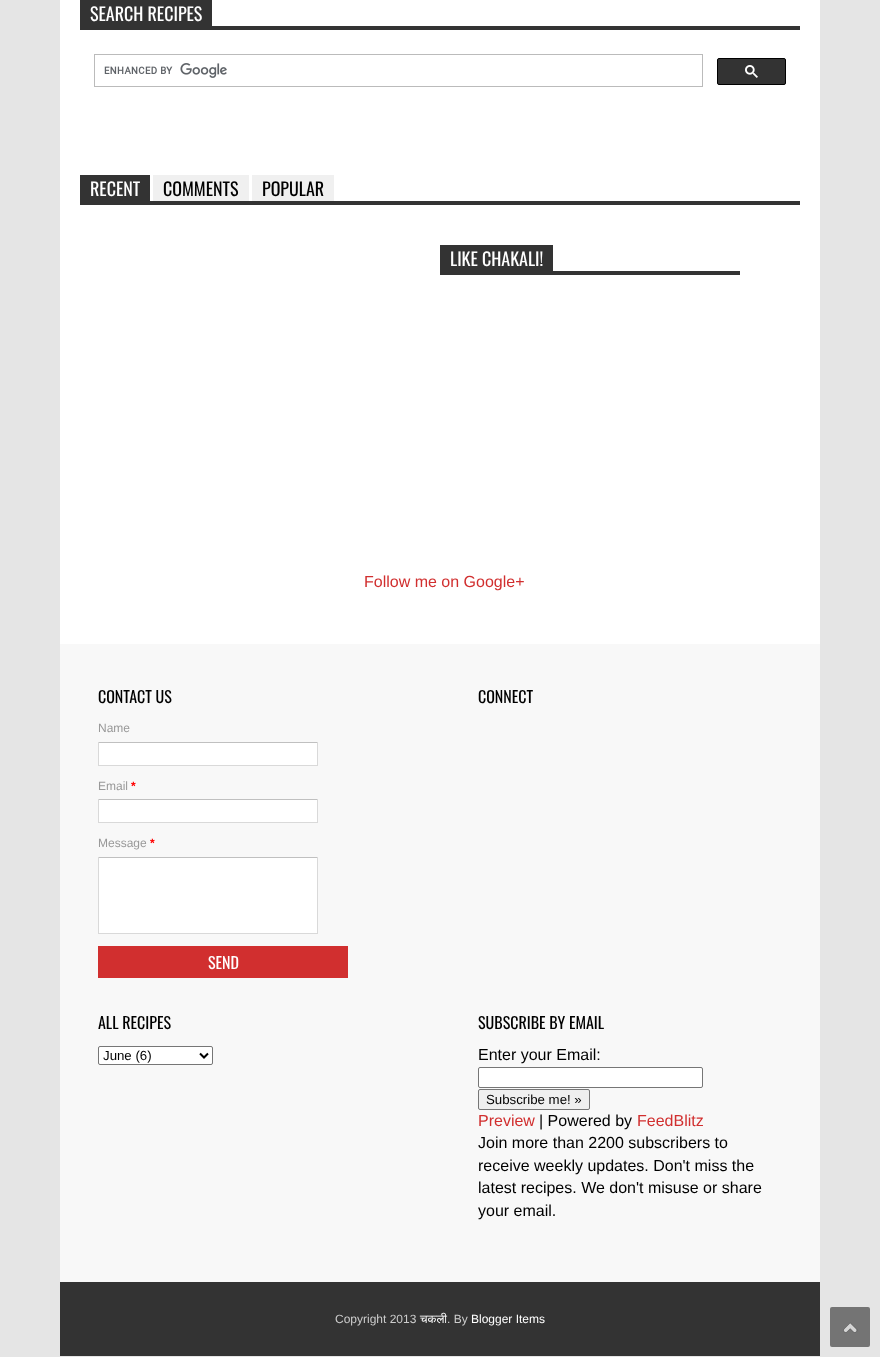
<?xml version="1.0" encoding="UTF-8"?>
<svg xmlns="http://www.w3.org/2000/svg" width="880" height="1357">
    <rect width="100%" height="100%" fill="#E5E5E5"/>
    <rect x="60" y="0" width="760" height="644" fill="#FFFFFF"/>
    <rect x="80" y="26" width="720" height="4" fill="#333333"/>
    <rect x="80" y="0" width="132" height="26" fill="#333333"/>
    <text x="90" y="21" font-family="Oswald" font-size="18" fill="#FFFFFF">SEARCH RECIPES</text>
    <rect x="94.5" y="54.5" width="608" height="32" fill="none" stroke="#BBBBBB"/>
    <image x="104" y="63" width="123" height="15" href="img_01.png"/>
    <rect x="717.5" y="58.5" width="68" height="26" rx="1.5" fill="#333333" stroke="#000000"/>
    <image x="745" y="65" width="13" height="13" href="img_02.png"/>
    <rect x="80" y="201" width="720" height="4" fill="#333333"/>
    <rect x="80" y="175" width="70" height="26" fill="#333333"/>
    <text x="90" y="196" font-family="Oswald" font-size="18" fill="#FFFFFF">RECENT</text>
    <rect x="153" y="175" width="96" height="26" fill="#F0F0F0"/>
    <text x="163" y="196" font-family="Oswald" font-size="18" fill="#000000">COMMENTS</text>
    <rect x="252" y="175" width="82" height="26" fill="#F0F0F0"/>
    <text x="262" y="196" font-family="Oswald" font-size="18" fill="#000000">POPULAR</text>
    <rect x="440" y="271" width="300" height="4" fill="#333333"/>
    <rect x="440" y="245" width="113" height="26" fill="#333333"/>
    <text x="450" y="266" font-family="Oswald" font-size="18" fill="#FFFFFF">LIKE CHAKALI!</text>
    <text x="364" y="587" font-family="Liberation Sans" font-size="16" fill="#D12F2F">Follow me on Google+</text>
    <rect x="60" y="644" width="760" height="638" fill="#F8F8F8"/>
    <text x="98" y="703" font-family="Oswald" font-size="16" fill="#000000">CONTACT US</text>
    <text x="98" y="732" font-family="Liberation Sans" font-size="12" fill="#999999">Name</text>
    <rect x="99" y="743" width="218" height="22" fill="#FFFFFF"/>
    <rect x="98" y="742" width="220" height="1" fill="#C0C0C0"/>
    <rect x="317" y="742" width="1" height="24" fill="#D9D9D9"/>
    <rect x="98" y="765" width="220" height="1" fill="#D9D9D9"/>
    <rect x="98" y="742" width="1" height="24" fill="#D9D9D9"/>
    <text x="98" y="790" font-family="Liberation Sans" font-size="12" fill="#999999">Email</text>
    <text x="131" y="790" font-family="Liberation Sans" font-size="12" font-weight="700" fill="#FF0000">*</text>
    <rect x="99" y="800" width="218" height="22" fill="#FFFFFF"/>
    <rect x="98" y="799" width="220" height="1" fill="#C0C0C0"/>
    <rect x="317" y="799" width="1" height="24" fill="#D9D9D9"/>
    <rect x="98" y="822" width="220" height="1" fill="#D9D9D9"/>
    <rect x="98" y="799" width="1" height="24" fill="#D9D9D9"/>
    <text x="98" y="847" font-family="Liberation Sans" font-size="12" fill="#999999">Message</text>
    <text x="150" y="847" font-family="Liberation Sans" font-size="12" font-weight="700" fill="#FF0000">*</text>
    <rect x="99" y="858" width="218" height="75" fill="#FFFFFF"/>
    <rect x="98" y="857" width="220" height="1" fill="#C0C0C0"/>
    <rect x="317" y="857" width="1" height="77" fill="#D9D9D9"/>
    <rect x="98" y="933" width="220" height="1" fill="#D9D9D9"/>
    <rect x="98" y="857" width="1" height="77" fill="#D9D9D9"/>
    <rect x="98" y="946" width="250" height="32" fill="#D12F2F"/>
    <text x="208" y="969" font-family="Oswald" font-size="16" fill="#FFFFFF">SEND</text>
    <text x="478" y="703" font-family="Oswald" font-size="16" fill="#000000">CONNECT</text>
    <text x="98" y="1029" font-family="Oswald" font-size="16" fill="#000000">ALL RECIPES</text>
    <rect x="98.5" y="1046.5" width="114" height="18" rx="1.5" fill="#FFFFFF" stroke="#767676"/>
    <path d="M 200 1053.5 L 204 1057.5 L 208 1053.5" fill="none" stroke="#000000" stroke-width="2"/>
    <text x="103" y="1060" font-family="Liberation Sans" font-size="13.25" fill="#000000">June (6)</text>
    <text x="478" y="1029" font-family="Oswald" font-size="16" fill="#000000">SUBSCRIBE BY EMAIL</text>
    <text x="478" y="1060" font-family="Liberation Sans" font-size="16" fill="#000000">Enter your Email:</text>
    <rect x="478.5" y="1067.5" width="224" height="20" rx="1.5" fill="#FFFFFF" stroke="#767676"/>
    <rect x="478.5" y="1089.5" width="111" height="20" rx="1.5" fill="#EFEFEF" stroke="#767676"/>
    <text x="486" y="1104" font-family="Liberation Sans" font-size="13.25" fill="#000000">Subscribe me! »</text>
    <text x="478" y="1126" font-family="Liberation Sans" font-size="16" fill="#D12F2F">Preview</text>
    <text x="539" y="1126" font-family="Liberation Sans" font-size="16" fill="#000000">| Powered by</text>
    <text x="637" y="1126" font-family="Liberation Sans" font-size="16" fill="#D12F2F">FeedBlitz</text>
    <text font-family="Liberation Sans" font-size="16" fill="#000000">
        <tspan x="478" y="1148">Join more than 2200 subscribers to</tspan>
        <tspan x="478" y="1171">receive weekly updates. Don't miss the</tspan>
        <tspan x="478" y="1193">latest recipes. We don't misuse or share</tspan>
        <tspan x="478" y="1216">your email.</tspan>
    </text>
    <rect x="60" y="1282" width="760" height="74" fill="#333333"/>
    <text x="335" y="1323" font-family="Liberation Sans" font-size="12" fill="#CCCCCC">Copyright 2013</text>
    <text x="420" y="1323" font-family="FreeSans" font-size="12" fill="#FFFFFF">चकली</text>
    <text x="447" y="1323" font-family="Liberation Sans" font-size="12" fill="#CCCCCC">. By</text>
    <text x="471" y="1323" font-family="Liberation Sans" font-size="12" fill="#FFFFFF">Blogger Items</text>
    <rect x="830" y="1307" width="40" height="40" rx="2" fill="#747474"/>
    <image x="843" y="1322" width="15" height="11" href="img_03.png"/>
</svg>
